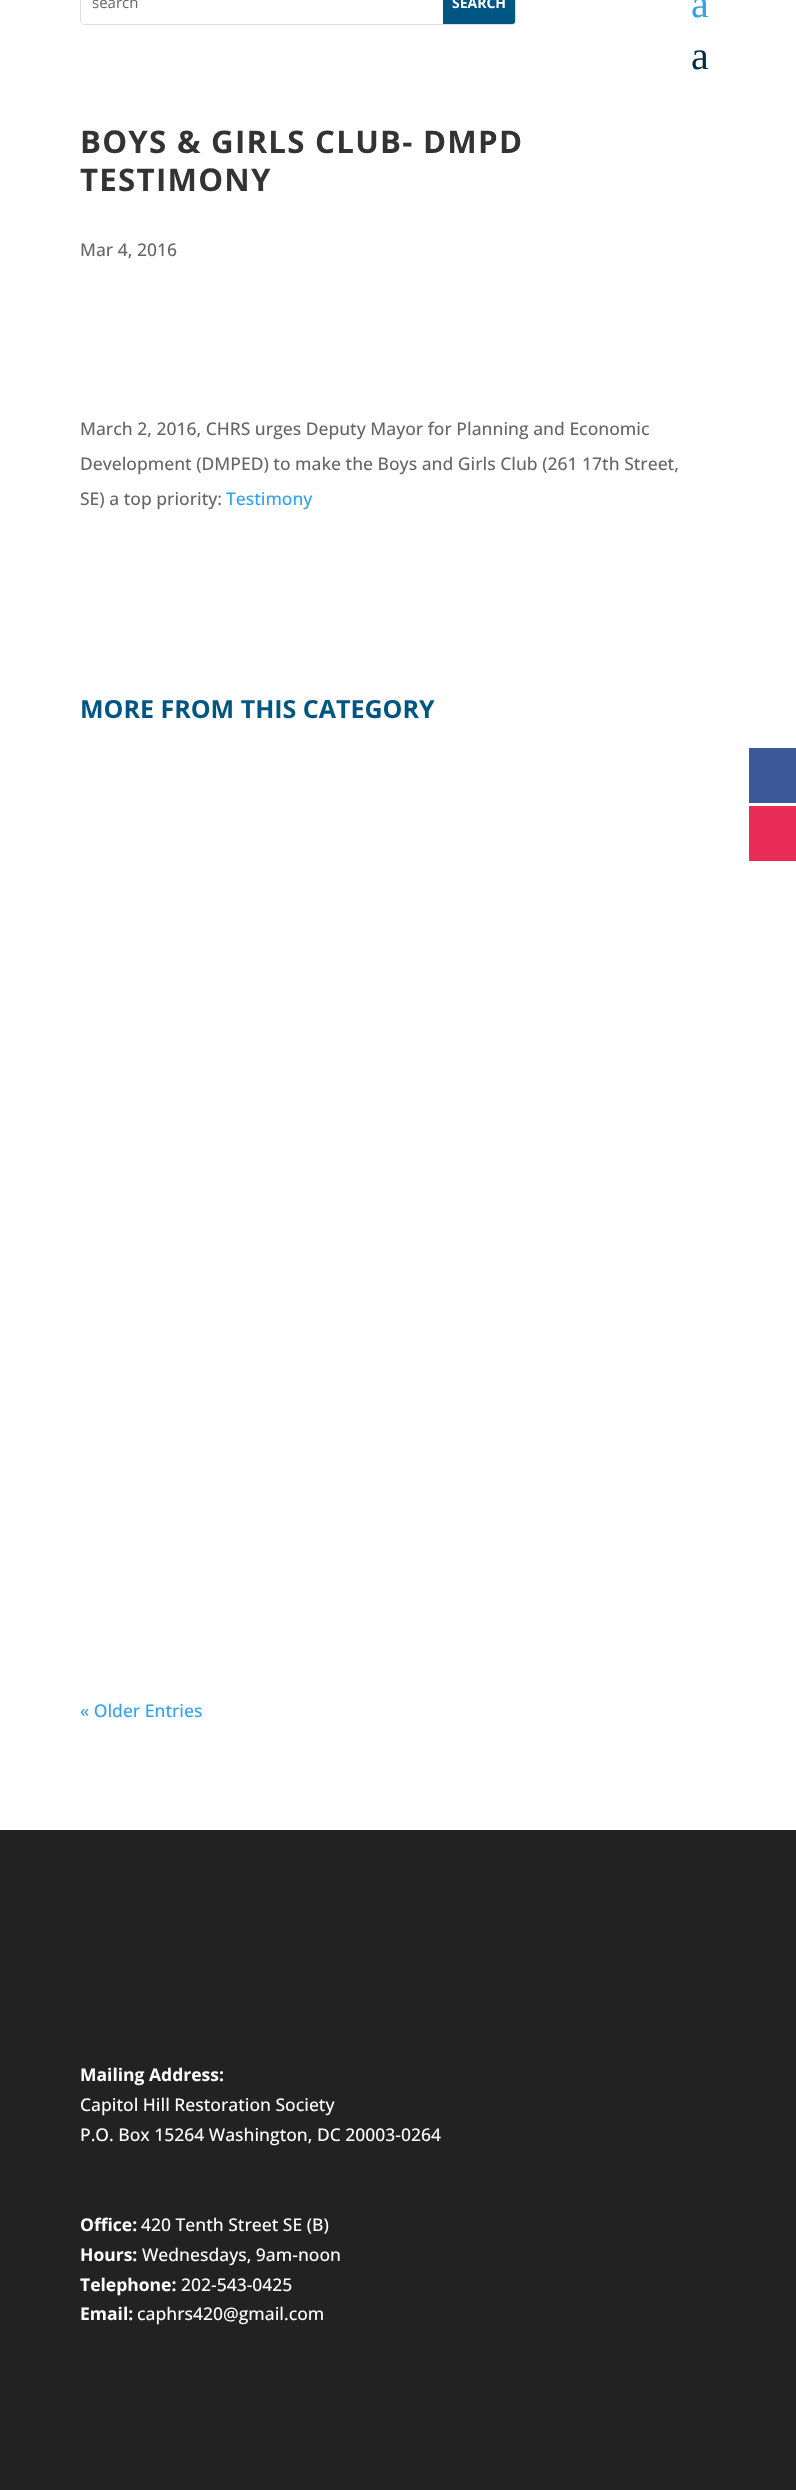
<?xml version="1.0" encoding="UTF-8"?>
<svg xmlns="http://www.w3.org/2000/svg" width="796" height="2490">
    <rect width="100%" height="100%" fill="#FFFFFF"/>
    <rect x="80.5" y="-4.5" width="435" height="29" rx="3.5" fill="none" stroke="#DDDDDD"/>
    <rect x="81" y="-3" width="434" height="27" rx="2.5" fill="#FFFFFF"/>
    <text x="92" y="8" font-family="Open Sans" font-size="15" fill="#666666">search</text>
    <path d="M 443 -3 H 512.5 C 514 -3 515 -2 515 -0.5 V 21.5 C 515 23 514 24 512.5 24 H 443 Z" fill="#005682"/>
    <text x="452" y="8" font-family="Open Sans" font-size="14" font-weight="700" fill="#FFFFFF">SEARCH</text>
    <text x="691" y="17" font-family="Liberation Serif" font-size="40" fill="#2EA3F2">a</text>
    <text x="691" y="69" font-family="Liberation Serif" font-size="40" fill="#002D4C">a</text>
    <rect x="749" y="748" width="47" height="55" fill="#3B5998"/>
    <rect x="749" y="806" width="47" height="55" fill="#EA2C59"/>
    <text font-family="Open Sans" font-size="31.25" font-weight="700" letter-spacing="1.25" fill="#333333">
        <tspan x="80" y="153">BOYS &amp; GIRLS CLUB- DMPD</tspan>
        <tspan x="80" y="191">TESTIMONY</tspan>
    </text>
    <text x="80" y="256" font-family="Open Sans" font-size="17.5" font-weight="500" fill="#666666">Mar 4, 2016</text>
    <text x="80" y="435" font-family="Open Sans" font-size="17.5" font-weight="500" fill="#666666">March 2, 2016, CHRS urges Deputy Mayor for Planning and Economic</text>
    <text x="80" y="470" font-family="Open Sans" font-size="17.5" font-weight="500" fill="#666666">Development (DMPED) to make the Boys and Girls Club (261 17th Street,</text>
    <text x="80" y="505" font-family="Open Sans" font-size="17.5" font-weight="500" fill="#666666">SE) a top priority:</text>
    <text x="226" y="505" font-family="Open Sans" font-size="17.5" font-weight="500" fill="#2EA3F2">Testimony</text>
    <text x="80" y="718" font-family="Open Sans" font-size="25" font-weight="700" fill="#005682">MORE FROM THIS CATEGORY</text>
    <text x="80" y="1717" font-family="Open Sans" font-size="17.5" font-weight="500" fill="#2EA3F2">« Older Entries</text>
    <rect x="0" y="1830" width="796" height="660" fill="#222222"/>
    <text x="80" y="2081" font-family="Open Sans" font-size="17.5" font-weight="700" fill="#FFFFFF">Mailing Address:</text>
    <text font-family="Open Sans" font-size="17.5" font-weight="500" fill="#FFFFFF">
        <tspan x="80" y="2111">Capitol Hill Restoration Society</tspan>
        <tspan x="80" y="2141">P.O. Box 15264 Washington, DC 20003-0264</tspan>
    </text>
    <text x="80" y="2231" font-family="Open Sans" font-size="17.5" font-weight="700" fill="#FFFFFF">Office:</text>
    <text x="141" y="2231" font-family="Open Sans" font-size="17.5" font-weight="500" fill="#FFFFFF">420 Tenth Street SE (B)</text>
    <text x="80" y="2261" font-family="Open Sans" font-size="17.5" font-weight="700" fill="#FFFFFF">Hours:</text>
    <text x="142" y="2261" font-family="Open Sans" font-size="17.5" font-weight="500" fill="#FFFFFF">Wednesdays, 9am-noon</text>
    <text x="80" y="2291" font-family="Open Sans" font-size="17.5" font-weight="700" fill="#FFFFFF">Telephone:</text>
    <text x="181" y="2291" font-family="Open Sans" font-size="17.5" font-weight="500" fill="#FFFFFF">202-543-0425</text>
    <text x="80" y="2320" font-family="Open Sans" font-size="17.5" font-weight="700" fill="#FFFFFF">Email:</text>
    <text x="137" y="2320" font-family="Open Sans" font-size="17.5" font-weight="500" fill="#FFFFFF">caphrs420@gmail.com</text>
</svg>
